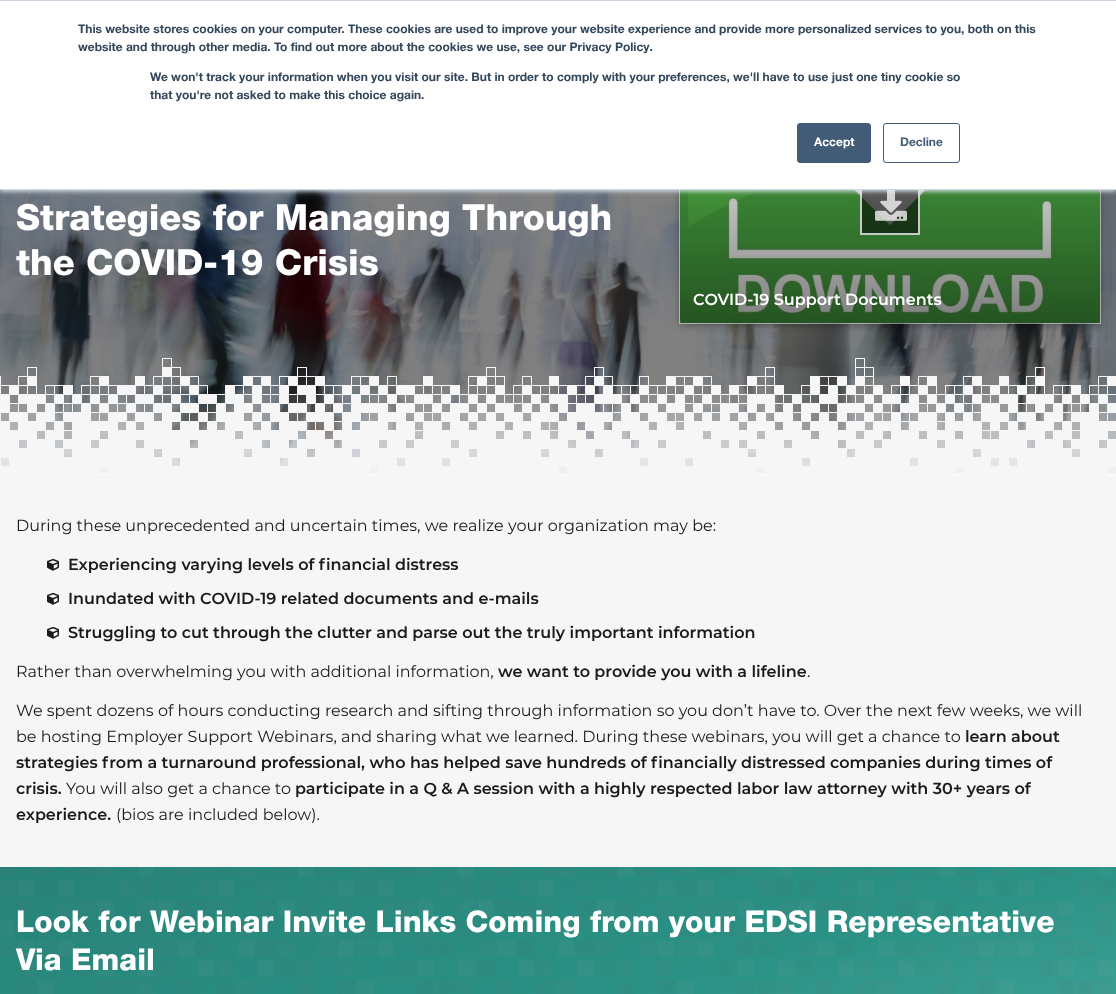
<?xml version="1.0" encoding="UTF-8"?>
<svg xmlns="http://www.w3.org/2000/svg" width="1116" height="994">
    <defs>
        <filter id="blur1" x="-50%" y="-200%" width="200%" height="500%"><feGaussianBlur stdDeviation="4"/></filter>
        <filter id="blur2" x="-50%" y="-200%" width="200%" height="500%"><feGaussianBlur stdDeviation="2.5"/></filter>
        <linearGradient id="g1" gradientUnits="userSpaceOnUse" x1="479" y1="735" x2="637" y2="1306"><stop offset="0" stop-color="#268277"/><stop offset="0.5" stop-color="#2B9286"/><stop offset="1" stop-color="#4FB0A5"/></linearGradient>
    </defs>
    <rect width="100%" height="100%" fill="#F6F6F6"/>
    <image x="0" y="190" width="1116" height="284" href="img_01.png"/>
    <rect x="680" y="89" width="420" height="236" fill="#000000" fill-opacity="0.38" filter="url(#blur1)"/>
    <image x="680" y="190" width="420" height="133" href="img_02.png"/>
    <rect x="679.5" y="86.5" width="421" height="237" fill="none" stroke="#FFFFFF" stroke-opacity="0.5"/>
    <rect x="860" y="190" width="60" height="45" fill="#000000" fill-opacity="0.56"/>
    <rect x="861" y="176" width="58" height="58" fill="none" stroke="#FFFFFF" stroke-opacity="0.75" stroke-width="2"/>
    <image x="875" y="190" width="32" height="31" href="img_03.png"/>
    <rect x="0" y="1" width="1116" height="190" fill="#EAF0F6" filter="url(#blur2)"/>
    <rect x="0" y="1" width="1116" height="188" fill="#FFFFFF"/>
    <rect x="0" y="0" width="1116" height="1" fill="#CBD6E2"/>
    <rect x="0" y="189" width="1116" height="1" fill="#CBD6E2"/>
    <text font-family="'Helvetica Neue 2'" font-size="12" font-weight="700" fill="#33475B">
        <tspan x="78" y="33">This website stores cookies on your computer. These cookies are used to improve your website experience and provide more personalized services to you, both on this</tspan>
        <tspan x="78" y="51">website and through other media. To find out more about the cookies we use, see our Privacy Policy.</tspan>
    </text>
    <text font-family="'Helvetica Neue 2'" font-size="12" font-weight="700" fill="#33475B">
        <tspan x="150" y="81">We won't track your information when you visit our site. But in order to comply with your preferences, we'll have to use just one tiny cookie so</tspan>
        <tspan x="150" y="99">that you're not asked to make this choice again.</tspan>
    </text>
    <rect x="797.5" y="123.5" width="73" height="39" rx="2.5" fill="#425B76" stroke="#425B76"/>
    <text x="814" y="146" font-family="'Helvetica Neue 2'" font-size="12" font-weight="700" fill="#FFFFFF">Accept</text>
    <rect x="883.5" y="123.5" width="76" height="39" rx="2.5" fill="none" stroke="#425B76"/>
    <text x="900" y="146" font-family="'Helvetica Neue 2'" font-size="12" font-weight="700" fill="#425B76">Decline</text>
    <text font-family="Helvetica Neue" font-size="36" font-weight="700" fill="#FFFFFF">
        <tspan x="16" y="230">Strategies for Managing Through</tspan>
        <tspan x="16" y="275">the COVID-19 Crisis</tspan>
    </text>
    <text x="693" y="305" font-family="Montserrat" font-size="16" font-weight="600" fill="#FFFFFF">COVID-19 Support Documents</text>
    <image x="0" y="358" width="1116" height="117" href="img_04.png"/>
    <text x="16" y="531" font-family="Montserrat" font-size="16" fill="#1A1A1A">During these unprecedented and uncertain times, we realize your organization may be:</text>
    <image x="47" y="558" width="12" height="13" href="img_05.png"/>
    <text x="68" y="570" font-family="Montserrat" font-size="16" font-weight="600" fill="#1A1A1A">Experiencing varying levels of financial distress</text>
    <image x="47" y="592" width="12" height="13" href="img_05.png"/>
    <text x="68" y="604" font-family="Montserrat" font-size="16" font-weight="600" fill="#1A1A1A">Inundated with COVID-19 related documents and e-mails</text>
    <image x="47" y="626" width="12" height="13" href="img_05.png"/>
    <text x="68" y="638" font-family="Montserrat" font-size="16" font-weight="600" fill="#1A1A1A">Struggling to cut through the clutter and parse out the truly important information</text>
    <text x="16" y="677" font-family="Montserrat" font-size="16" fill="#1A1A1A">Rather than overwhelming you with additional information,</text>
    <text x="498" y="677" font-family="Montserrat" font-size="16" font-weight="600" fill="#1A1A1A">we want to provide you with a lifeline</text>
    <text x="807" y="677" font-family="Montserrat" font-size="16" fill="#1A1A1A">.</text>
    <text font-family="Montserrat" font-size="16" fill="#1A1A1A">
        <tspan x="16" y="716">We spent dozens of hours conducting research and sifting through information so you don’t have to. Over the next few weeks, we will</tspan>
        <tspan x="16" y="742">be hosting Employer Support Webinars, and sharing what we learned. During these webinars, you will get a chance to</tspan>
    </text>
    <text x="965" y="742" font-family="Montserrat" font-size="16" font-weight="600" fill="#1A1A1A">learn about</text>
    <text font-family="Montserrat" font-size="16" font-weight="600" fill="#1A1A1A">
        <tspan x="16" y="768">strategies from a turnaround professional, who has helped save hundreds of financially distressed companies during times of</tspan>
        <tspan x="16" y="794">crisis.</tspan>
    </text>
    <text x="66" y="794" font-family="Montserrat" font-size="16" fill="#1A1A1A">You will also get a chance to</text>
    <text x="295" y="794" font-family="Montserrat" font-size="16" font-weight="600" fill="#1A1A1A">participate in a Q &amp; A session with a highly respected labor law attorney with 30+ years of</text>
    <text x="16" y="820" font-family="Montserrat" font-size="16" font-weight="600" fill="#1A1A1A">experience.</text>
    <text x="116" y="820" font-family="Montserrat" font-size="16" fill="#1A1A1A">(bios are included below).</text>
    <rect x="0" y="867" width="1116" height="127" fill="url(#g1)"/>
    <image x="0" y="867" width="1114" height="127" href="img_06.png"/>
    <text font-family="Helvetica Neue" font-size="30" font-weight="700" fill="#FFFFFF">
        <tspan x="16" y="932">Look for Webinar Invite Links Coming from your EDSI Representative</tspan>
        <tspan x="16" y="970">Via Email</tspan>
    </text>
</svg>
